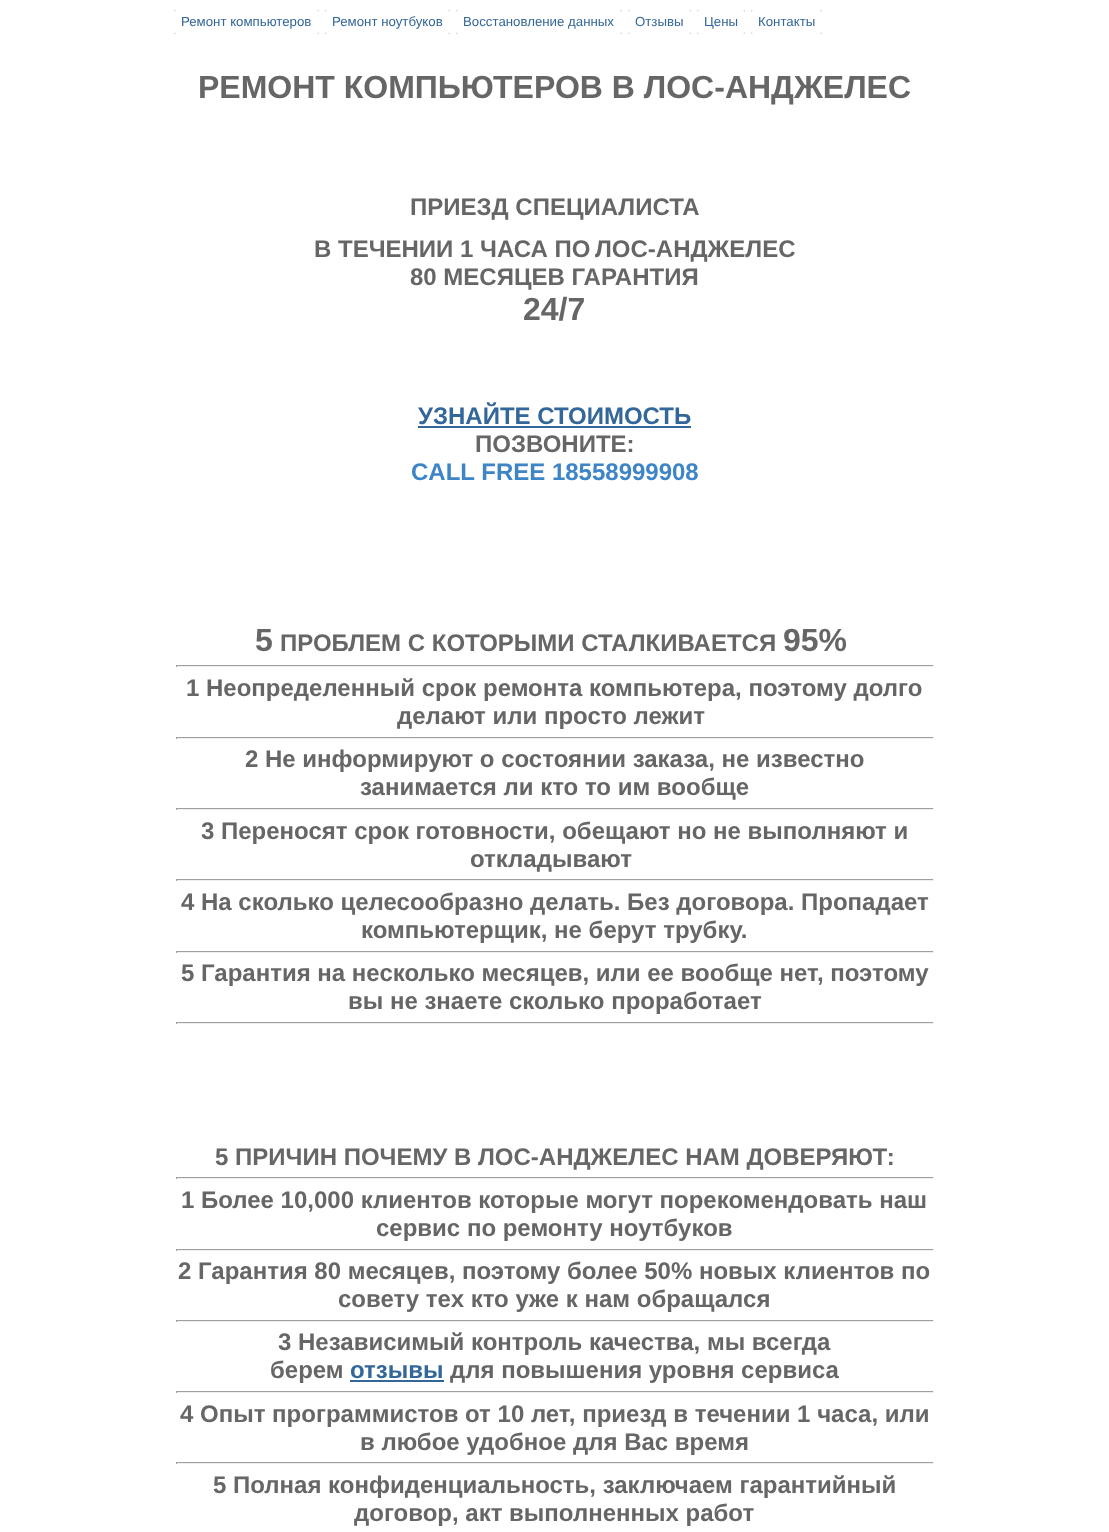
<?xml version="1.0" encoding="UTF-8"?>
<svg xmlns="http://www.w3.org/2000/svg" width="1109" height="1532">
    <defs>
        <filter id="blur1" x="-50%" y="-200%" width="200%" height="500%"><feGaussianBlur stdDeviation="0.5"/></filter>
    </defs>
    <rect width="100%" height="100%" fill="#FFFFFF"/>
    <rect x="174" y="10" width="145" height="24" rx="2" fill="#555555" filter="url(#blur1)"/>
    <rect x="174" y="10" width="145" height="24" rx="2" fill="#FFFFFF"/>
    <text x="181" y="26" font-family="Liberation Sans" font-size="13.25" fill="#336699">Ремонт компьютеров</text>
    <rect x="325" y="10" width="125" height="24" rx="2" fill="#555555" filter="url(#blur1)"/>
    <rect x="325" y="10" width="125" height="24" rx="2" fill="#FFFFFF"/>
    <text x="332" y="26" font-family="Liberation Sans" font-size="13.25" fill="#336699">Ремонт ноутбуков</text>
    <rect x="456" y="10" width="166" height="24" rx="2" fill="#555555" filter="url(#blur1)"/>
    <rect x="456" y="10" width="166" height="24" rx="2" fill="#FFFFFF"/>
    <text x="463" y="26" font-family="Liberation Sans" font-size="13.25" fill="#336699">Восстановление данных</text>
    <rect x="628" y="10" width="63" height="24" rx="2" fill="#555555" filter="url(#blur1)"/>
    <rect x="628" y="10" width="63" height="24" rx="2" fill="#FFFFFF"/>
    <text x="635" y="26" font-family="Liberation Sans" font-size="13.25" fill="#336699">Отзывы</text>
    <rect x="697" y="10" width="48" height="24" rx="2" fill="#555555" filter="url(#blur1)"/>
    <rect x="697" y="10" width="48" height="24" rx="2" fill="#FFFFFF"/>
    <text x="704" y="26" font-family="Liberation Sans" font-size="13.25" fill="#336699">Цены</text>
    <rect x="751" y="10" width="71" height="24" rx="2" fill="#555555" filter="url(#blur1)"/>
    <rect x="751" y="10" width="71" height="24" rx="2" fill="#FFFFFF"/>
    <text x="758" y="26" font-family="Liberation Sans" font-size="13.25" fill="#336699">Контакты</text>
    <text x="198" y="98" font-family="Liberation Sans" font-size="32" font-weight="700" fill="#666666">РЕМОНТ КОМПЬЮТЕРОВ В ЛОС-АНДЖЕЛЕС</text>
    <text x="410" y="215" font-family="Liberation Sans" font-size="24" font-weight="700" fill="#666666">ПРИЕЗД СПЕЦИАЛИСТА</text>
    <text x="314" y="257" font-family="Liberation Sans" font-size="24" font-weight="700" fill="#666666">В ТЕЧЕНИИ 1 ЧАСА ПО</text>
    <text x="595" y="257" font-family="Liberation Sans" font-size="24" font-weight="700" fill="#666666">ЛОС-АНДЖЕЛЕС</text>
    <text x="410" y="285" font-family="Liberation Sans" font-size="24" font-weight="700" fill="#666666">80 МЕСЯЦЕВ ГАРАНТИЯ</text>
    <text x="523" y="320" font-family="Liberation Sans" font-size="32" font-weight="700" fill="#666666">24/7</text>
    <text x="418" y="424" font-family="Liberation Sans" font-size="24" font-weight="700" fill="#336699">УЗНАЙТЕ СТОИМОСТЬ</text>
    <rect x="418" y="426" width="273" height="2" fill="#336699"/>
    <text x="475" y="452" font-family="Liberation Sans" font-size="24" font-weight="700" fill="#666666">ПОЗВОНИТЕ:</text>
    <text x="411" y="480" font-family="Liberation Sans" font-size="24" font-weight="700" fill="#3D85C6">CALL FREE 18558999908</text>
    <text x="255" y="651" font-family="Liberation Sans" font-size="32" font-weight="700" fill="#666666">5</text>
    <text x="280" y="651" font-family="Liberation Sans" font-size="24" font-weight="700" fill="#666666">ПРОБЛЕМ С КОТОРЫМИ СТАЛКИВАЕТСЯ</text>
    <text x="783" y="651" font-family="Liberation Sans" font-size="32" font-weight="700" fill="#666666">95%</text>
    <rect x="176" y="665" width="758" height="1" fill="#9F9F9F"/>
    <rect x="933" y="665" width="1" height="2" fill="#EEEEEE"/>
    <rect x="176" y="666" width="758" height="1" fill="#EEEEEE"/>
    <rect x="176" y="665" width="1" height="2" fill="#9F9F9F"/>
    <text x="186" y="696" font-family="Liberation Sans" font-size="24" font-weight="700" fill="#666666">1 Неопределенный срок ремонта компьютера, поэтому долго</text>
    <text x="397" y="724" font-family="Liberation Sans" font-size="24" font-weight="700" fill="#666666">делают или просто лежит</text>
    <rect x="176" y="737" width="758" height="1" fill="#9F9F9F"/>
    <rect x="933" y="737" width="1" height="2" fill="#EEEEEE"/>
    <rect x="176" y="738" width="758" height="1" fill="#EEEEEE"/>
    <rect x="176" y="737" width="1" height="2" fill="#9F9F9F"/>
    <text x="245" y="767" font-family="Liberation Sans" font-size="24" font-weight="700" fill="#666666">2 Не информируют о состоянии заказа, не известно</text>
    <text x="360" y="795" font-family="Liberation Sans" font-size="24" font-weight="700" fill="#666666">занимается ли кто то им вообще</text>
    <rect x="176" y="808" width="758" height="1" fill="#9F9F9F"/>
    <rect x="933" y="808" width="1" height="2" fill="#EEEEEE"/>
    <rect x="176" y="809" width="758" height="1" fill="#EEEEEE"/>
    <rect x="176" y="808" width="1" height="2" fill="#9F9F9F"/>
    <text x="201" y="839" font-family="Liberation Sans" font-size="24" font-weight="700" fill="#666666">3 Переносят срок готовности, обещают но не выполняют и</text>
    <text x="470" y="867" font-family="Liberation Sans" font-size="24" font-weight="700" fill="#666666">откладывают</text>
    <rect x="176" y="879" width="758" height="1" fill="#9F9F9F"/>
    <rect x="933" y="879" width="1" height="2" fill="#EEEEEE"/>
    <rect x="176" y="880" width="758" height="1" fill="#EEEEEE"/>
    <rect x="176" y="879" width="1" height="2" fill="#9F9F9F"/>
    <text x="181" y="910" font-family="Liberation Sans" font-size="24" font-weight="700" fill="#666666">4 На сколько целесообразно делать. Без договора. Пропадает</text>
    <text x="361" y="938" font-family="Liberation Sans" font-size="24" font-weight="700" fill="#666666">компьютерщик, не берут трубку.</text>
    <rect x="176" y="951" width="758" height="1" fill="#9F9F9F"/>
    <rect x="933" y="951" width="1" height="2" fill="#EEEEEE"/>
    <rect x="176" y="952" width="758" height="1" fill="#EEEEEE"/>
    <rect x="176" y="951" width="1" height="2" fill="#9F9F9F"/>
    <text x="181" y="981" font-family="Liberation Sans" font-size="24" font-weight="700" fill="#666666">5 Гарантия на несколько месяцев, или ее вообще нет, поэтому</text>
    <text x="348" y="1009" font-family="Liberation Sans" font-size="24" font-weight="700" fill="#666666">вы не знаете сколько проработает</text>
    <rect x="176" y="1022" width="758" height="1" fill="#9F9F9F"/>
    <rect x="933" y="1022" width="1" height="2" fill="#EEEEEE"/>
    <rect x="176" y="1023" width="758" height="1" fill="#EEEEEE"/>
    <rect x="176" y="1022" width="1" height="2" fill="#9F9F9F"/>
    <text x="215" y="1165" font-family="Liberation Sans" font-size="24" font-weight="700" fill="#666666">5 ПРИЧИН ПОЧЕМУ В ЛОС-АНДЖЕЛЕС НАМ ДОВЕРЯЮТ:</text>
    <rect x="176" y="1177" width="758" height="1" fill="#9F9F9F"/>
    <rect x="933" y="1177" width="1" height="2" fill="#EEEEEE"/>
    <rect x="176" y="1178" width="758" height="1" fill="#EEEEEE"/>
    <rect x="176" y="1177" width="1" height="2" fill="#9F9F9F"/>
    <text x="181" y="1208" font-family="Liberation Sans" font-size="24" font-weight="700" fill="#666666">1 Более 10,000 клиентов которые могут порекомендовать наш</text>
    <text x="376" y="1236" font-family="Liberation Sans" font-size="24" font-weight="700" fill="#666666">сервис по ремонту ноутбуков</text>
    <rect x="176" y="1249" width="758" height="1" fill="#9F9F9F"/>
    <rect x="933" y="1249" width="1" height="2" fill="#EEEEEE"/>
    <rect x="176" y="1250" width="758" height="1" fill="#EEEEEE"/>
    <rect x="176" y="1249" width="1" height="2" fill="#9F9F9F"/>
    <text x="178" y="1279" font-family="Liberation Sans" font-size="24" font-weight="700" fill="#666666">2 Гарантия 80 месяцев, поэтому более 50% новых клиентов по</text>
    <text x="338" y="1307" font-family="Liberation Sans" font-size="24" font-weight="700" fill="#666666">совету тех кто уже к нам обращался</text>
    <rect x="176" y="1320" width="758" height="1" fill="#9F9F9F"/>
    <rect x="933" y="1320" width="1" height="2" fill="#EEEEEE"/>
    <rect x="176" y="1321" width="758" height="1" fill="#EEEEEE"/>
    <rect x="176" y="1320" width="1" height="2" fill="#9F9F9F"/>
    <text x="278" y="1350" font-family="Liberation Sans" font-size="24" font-weight="700" fill="#666666">3 Независимый контроль качества, мы всегда</text>
    <text x="270" y="1378" font-family="Liberation Sans" font-size="24" font-weight="700" fill="#666666">берем</text>
    <text x="350" y="1378" font-family="Liberation Sans" font-size="24" font-weight="700" fill="#336699">отзывы</text>
    <rect x="350" y="1380" width="94" height="2" fill="#336699"/>
    <text x="450" y="1378" font-family="Liberation Sans" font-size="24" font-weight="700" fill="#666666">для повышения уровня сервиса</text>
    <rect x="176" y="1391" width="758" height="1" fill="#9F9F9F"/>
    <rect x="933" y="1391" width="1" height="2" fill="#EEEEEE"/>
    <rect x="176" y="1392" width="758" height="1" fill="#EEEEEE"/>
    <rect x="176" y="1391" width="1" height="2" fill="#9F9F9F"/>
    <text x="180" y="1422" font-family="Liberation Sans" font-size="24" font-weight="700" fill="#666666">4 Опыт программистов от 10 лет, приезд в течении 1 часа, или</text>
    <text x="360" y="1450" font-family="Liberation Sans" font-size="24" font-weight="700" fill="#666666">в любое удобное для Вас время</text>
    <rect x="176" y="1462" width="758" height="1" fill="#9F9F9F"/>
    <rect x="933" y="1462" width="1" height="2" fill="#EEEEEE"/>
    <rect x="176" y="1463" width="758" height="1" fill="#EEEEEE"/>
    <rect x="176" y="1462" width="1" height="2" fill="#9F9F9F"/>
    <text x="213" y="1493" font-family="Liberation Sans" font-size="24" font-weight="700" fill="#666666">5 Полная конфиденциальность, заключаем гарантийный</text>
    <text x="354" y="1521" font-family="Liberation Sans" font-size="24" font-weight="700" fill="#666666">договор, акт выполненных работ</text>
</svg>
